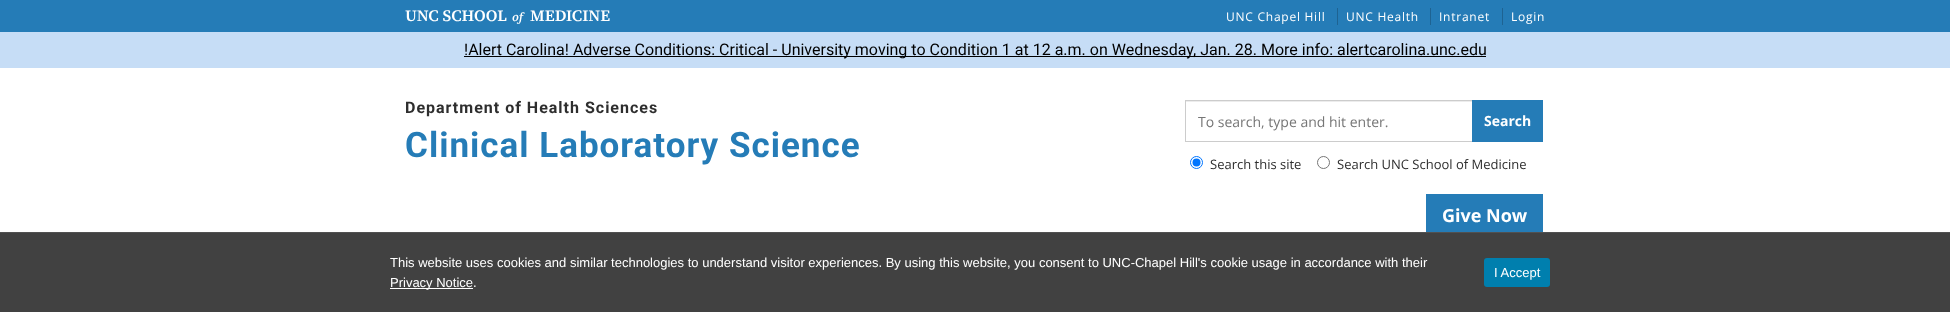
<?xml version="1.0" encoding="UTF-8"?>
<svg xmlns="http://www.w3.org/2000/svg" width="1950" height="312">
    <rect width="100%" height="100%" fill="#FFFFFF"/>
    <rect x="0" y="0" width="1950" height="32" fill="#257CB7"/>
    <text x="405" y="21" font-family="'Source Serif 4'" font-size="16" font-weight="600" fill="#FFFFFF">UNC SCHOOL</text>
    <text x="512" y="21" font-family="'Source Serif 4'" font-size="12" font-weight="600" font-style="italic" fill="#FFFFFF">of</text>
    <text x="530" y="21" font-family="'Source Serif 4'" font-size="16" font-weight="600" fill="#FFFFFF">MEDICINE</text>
    <text x="1226" y="21" font-family="Open Sans" font-size="12" letter-spacing="0.75" fill="#FFFFFF">UNC Chapel Hill</text>
    <rect x="1337" y="8" width="1" height="17" fill="#1E6392"/>
    <text x="1346" y="21" font-family="Open Sans" font-size="12" letter-spacing="0.75" fill="#FFFFFF">UNC Health</text>
    <rect x="1430" y="8" width="1" height="17" fill="#1E6392"/>
    <text x="1439" y="21" font-family="Open Sans" font-size="12" letter-spacing="0.75" fill="#FFFFFF">Intranet</text>
    <rect x="1502" y="8" width="1" height="17" fill="#1E6392"/>
    <text x="1511" y="21" font-family="Open Sans" font-size="12" letter-spacing="0.75" fill="#FFFFFF">Login</text>
    <rect x="0" y="32" width="1950" height="36" fill="#C6DDF6"/>
    <rect x="464" y="56" width="1022" height="1" fill="#000000"/>
    <text x="464" y="55" font-family="Roboto" font-size="16" fill="#000000">!Alert Carolina! Adverse Conditions: Critical - University moving to Condition 1 at 12 a.m. on Wednesday, Jan. 28. More info: alertcarolina.unc.edu</text>
    <text x="405" y="113" font-family="Roboto" font-size="16" font-weight="700" letter-spacing="1" fill="#2E2E2E">Department of Health Sciences</text>
    <text x="405" y="157" font-family="Roboto" font-size="35" font-weight="700" letter-spacing="1" fill="#257CB7">Clinical Laboratory Science</text>
    <rect x="1186" y="101" width="286" height="1" fill="#ECECEC"/>
    <rect x="1185.5" y="100.5" width="287" height="41" fill="none" stroke="#CCCCCC"/>
    <text x="1198" y="127" font-family="Open Sans" font-size="14" fill="#767676">To search, type and hit enter.</text>
    <rect x="1472" y="100" width="71" height="42" fill="#257CB7"/>
    <text x="1484" y="126" font-family="Open Sans" font-size="14" font-weight="700" fill="#FFFFFF">Search</text>
    <circle cx="1196.5" cy="162.5" r="6" fill="none" stroke="#0075FF"/>
    <circle cx="1196.5" cy="162.5" r="4" fill="#0075FF"/>
    <text x="1210" y="169" font-family="Open Sans" font-size="13" fill="#2E2E2E">Search this site</text>
    <circle cx="1323.5" cy="162.5" r="6" fill="none" stroke="#767676"/>
    <text x="1337" y="169" font-family="Open Sans" font-size="13" fill="#2E2E2E">Search UNC School of Medicine</text>
    <rect x="1426" y="194" width="117" height="38" fill="#257CB7"/>
    <text x="1442" y="222" font-family="Open Sans" font-size="18" font-weight="700" fill="#FFFFFF">Give Now</text>
    <rect x="0" y="233" width="1950" height="79" fill="#414141"/>
    <rect x="0" y="232" width="1950" height="1" fill="#515151"/>
    <text x="390" y="267" font-family="Liberation Sans" font-size="13" fill="#FFFFFF">This website uses cookies and similar technologies to understand visitor experiences. By using this website, you consent to UNC-Chapel Hill's cookie usage in accordance with their</text>
    <rect x="390" y="288" width="83" height="1" fill="#FFFFFF"/>
    <text x="390" y="287" font-family="Liberation Sans" font-size="13" fill="#FFFFFF">Privacy Notice.</text>
    <rect x="1484" y="258" width="66" height="29" rx="3" fill="#007FAE"/>
    <text x="1494" y="277" font-family="Liberation Sans" font-size="13" fill="#FFFFFF">I Accept</text>
</svg>
